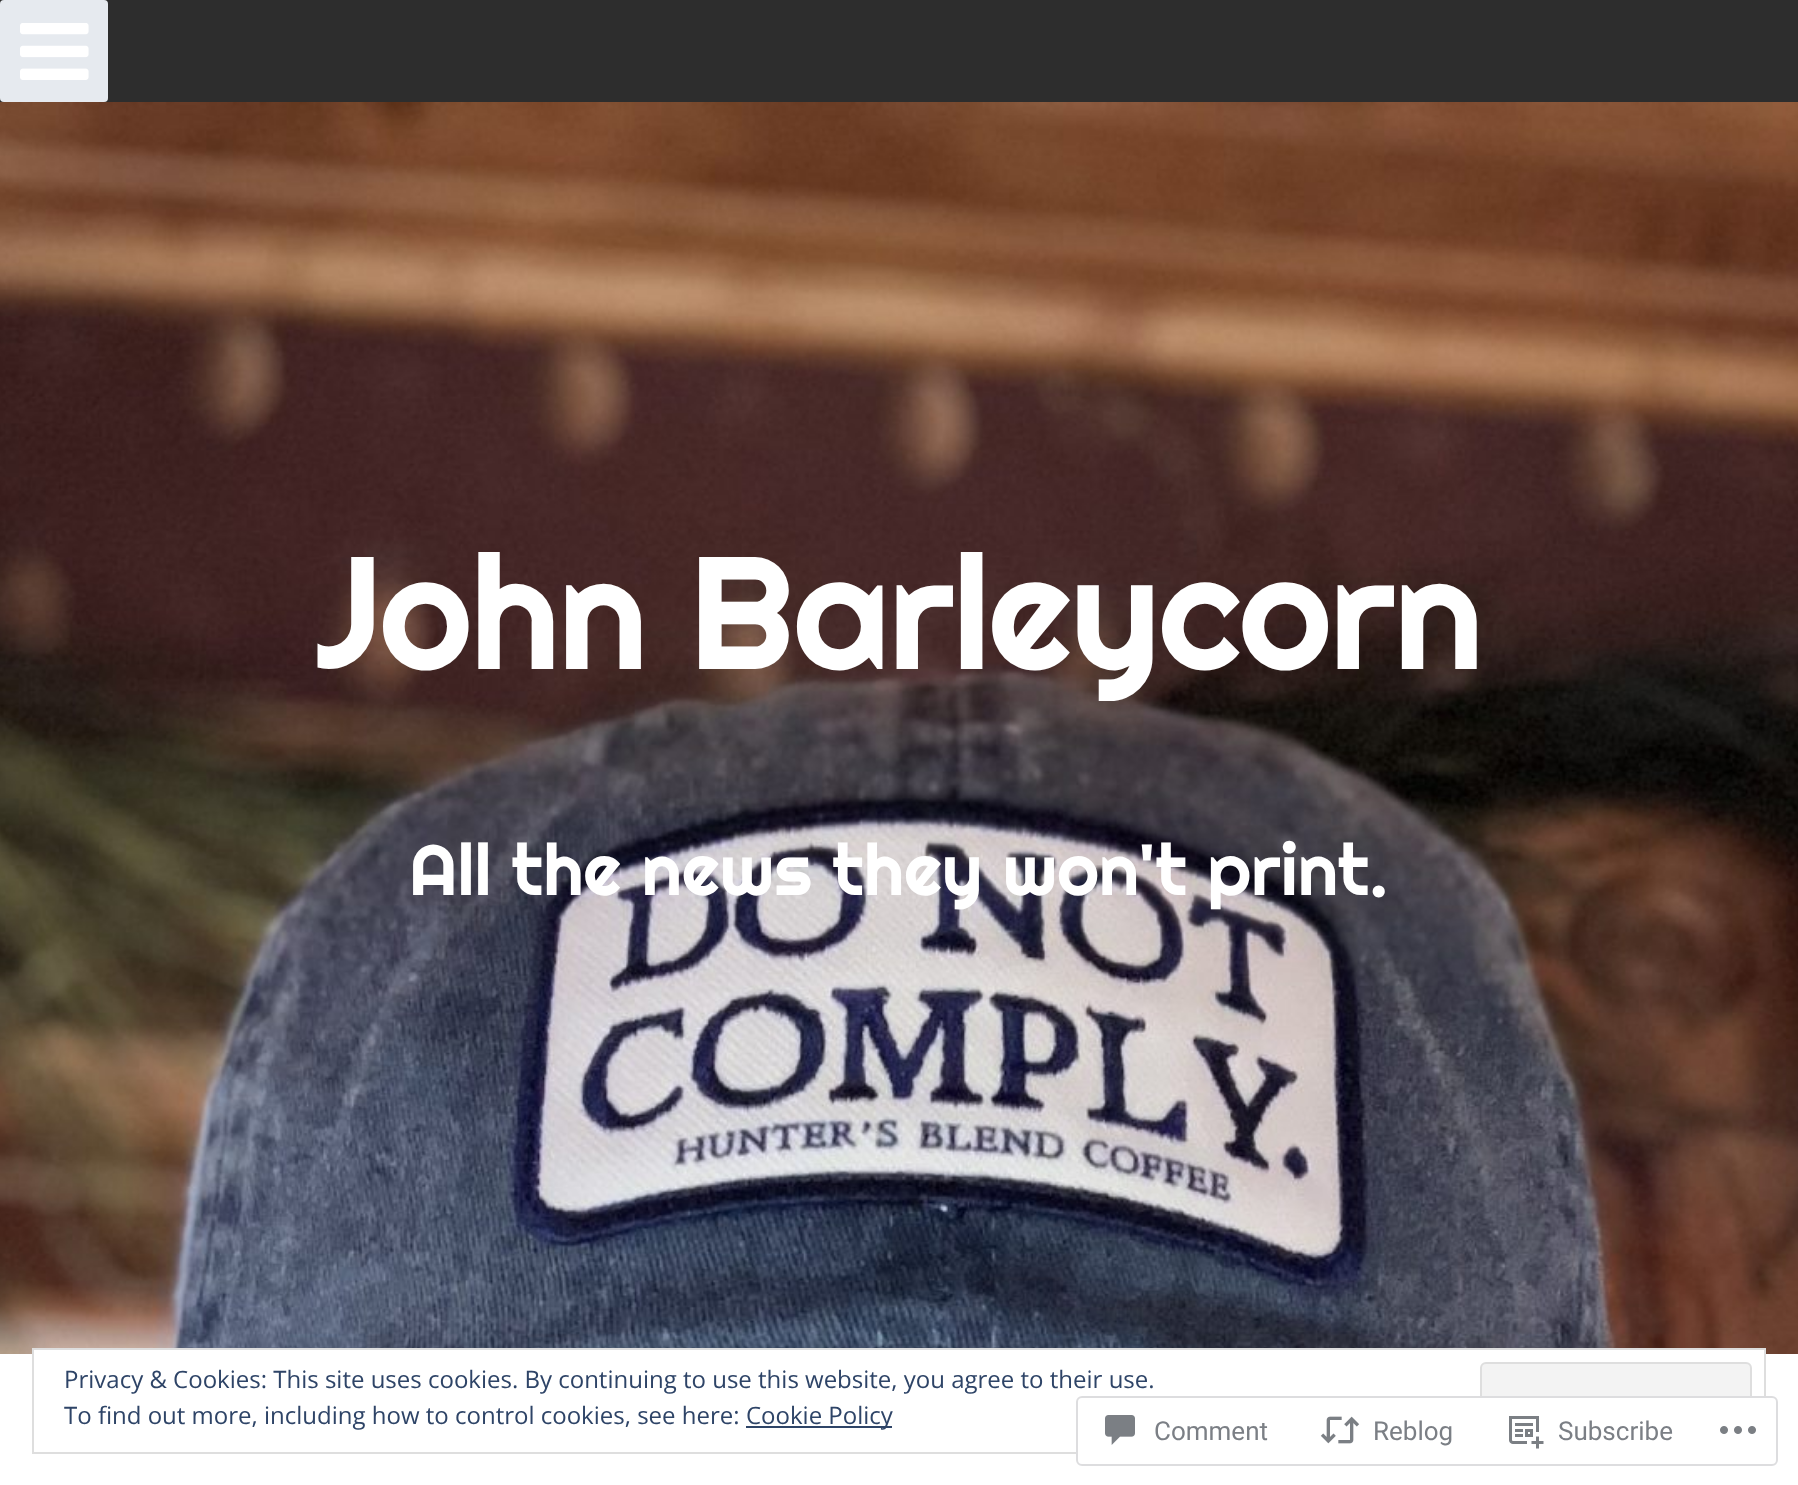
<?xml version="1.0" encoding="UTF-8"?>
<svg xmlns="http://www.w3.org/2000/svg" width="1798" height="1485">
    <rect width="100%" height="100%" fill="#2D2D2D"/>
    <rect x="0" y="0" width="108" height="102" rx="4" fill="#E6EAEF"/>
    <image x="20" y="23" width="69" height="57" href="img_01.png"/>
    <image x="0" y="102" width="1798" height="1252" href="img_02.png"/>
    <text x="316" y="669" font-family="Righteous" font-size="160" letter-spacing="-2" fill="#FFFFFF">John Barleycorn</text>
    <text x="409" y="895" font-family="Righteous" font-size="72" fill="#FFFFFF">All the news they won't print.</text>
    <rect x="0" y="1354" width="1798" height="131" fill="#FFFFFF"/>
    <rect x="34" y="1350" width="1730" height="4" fill="#FFFFFF"/>
    <rect x="33" y="1349" width="1732" height="104" fill="none" stroke="#DEDEDE" stroke-width="2"/>
    <text x="64" y="1388" font-family="Open Sans" font-size="24" fill="#2E4467">Privacy &amp; Cookies: This site uses cookies. By continuing to use this website, you agree to their use.</text>
    <rect x="1481" y="1363" width="270" height="76" rx="5" fill="#F3F3F3" stroke="#DEDEDE" stroke-width="2"/>
    <text x="64" y="1424" font-family="Open Sans" font-size="24" fill="#2E4467">To find out more, including how to control cookies, see here:</text>
    <rect x="746" y="1426" width="146" height="2" fill="#2E4467"/>
    <text x="746" y="1424" font-family="Open Sans" font-size="24" fill="#2E4467">Cookie Policy</text>
    <rect x="1076" y="1396" width="702" height="70" rx="6" fill="#FFFFFF" fill-opacity="0.98"/>
    <rect x="1077" y="1397" width="700" height="68" rx="5" fill="none" stroke="#DCDCDE" stroke-opacity="0.98" stroke-width="2"/>
    <image x="1105" y="1415" width="30" height="30" href="img_03.png"/>
    <text x="1154" y="1440" font-family="Roboto" font-size="26" fill="#7B7F85">Comment</text>
    <image x="1320" y="1416" width="40" height="28" href="img_04.png"/>
    <text x="1373" y="1440" font-family="Roboto" font-size="26" fill="#7B7F85">Reblog</text>
    <image x="1509" y="1416" width="35" height="33" href="img_05.png"/>
    <text x="1558" y="1440" font-family="Roboto" font-size="26" fill="#7B7F85">Subscribe</text>
    <image x="1720" y="1426" width="36" height="8" href="img_06.png"/>
</svg>
